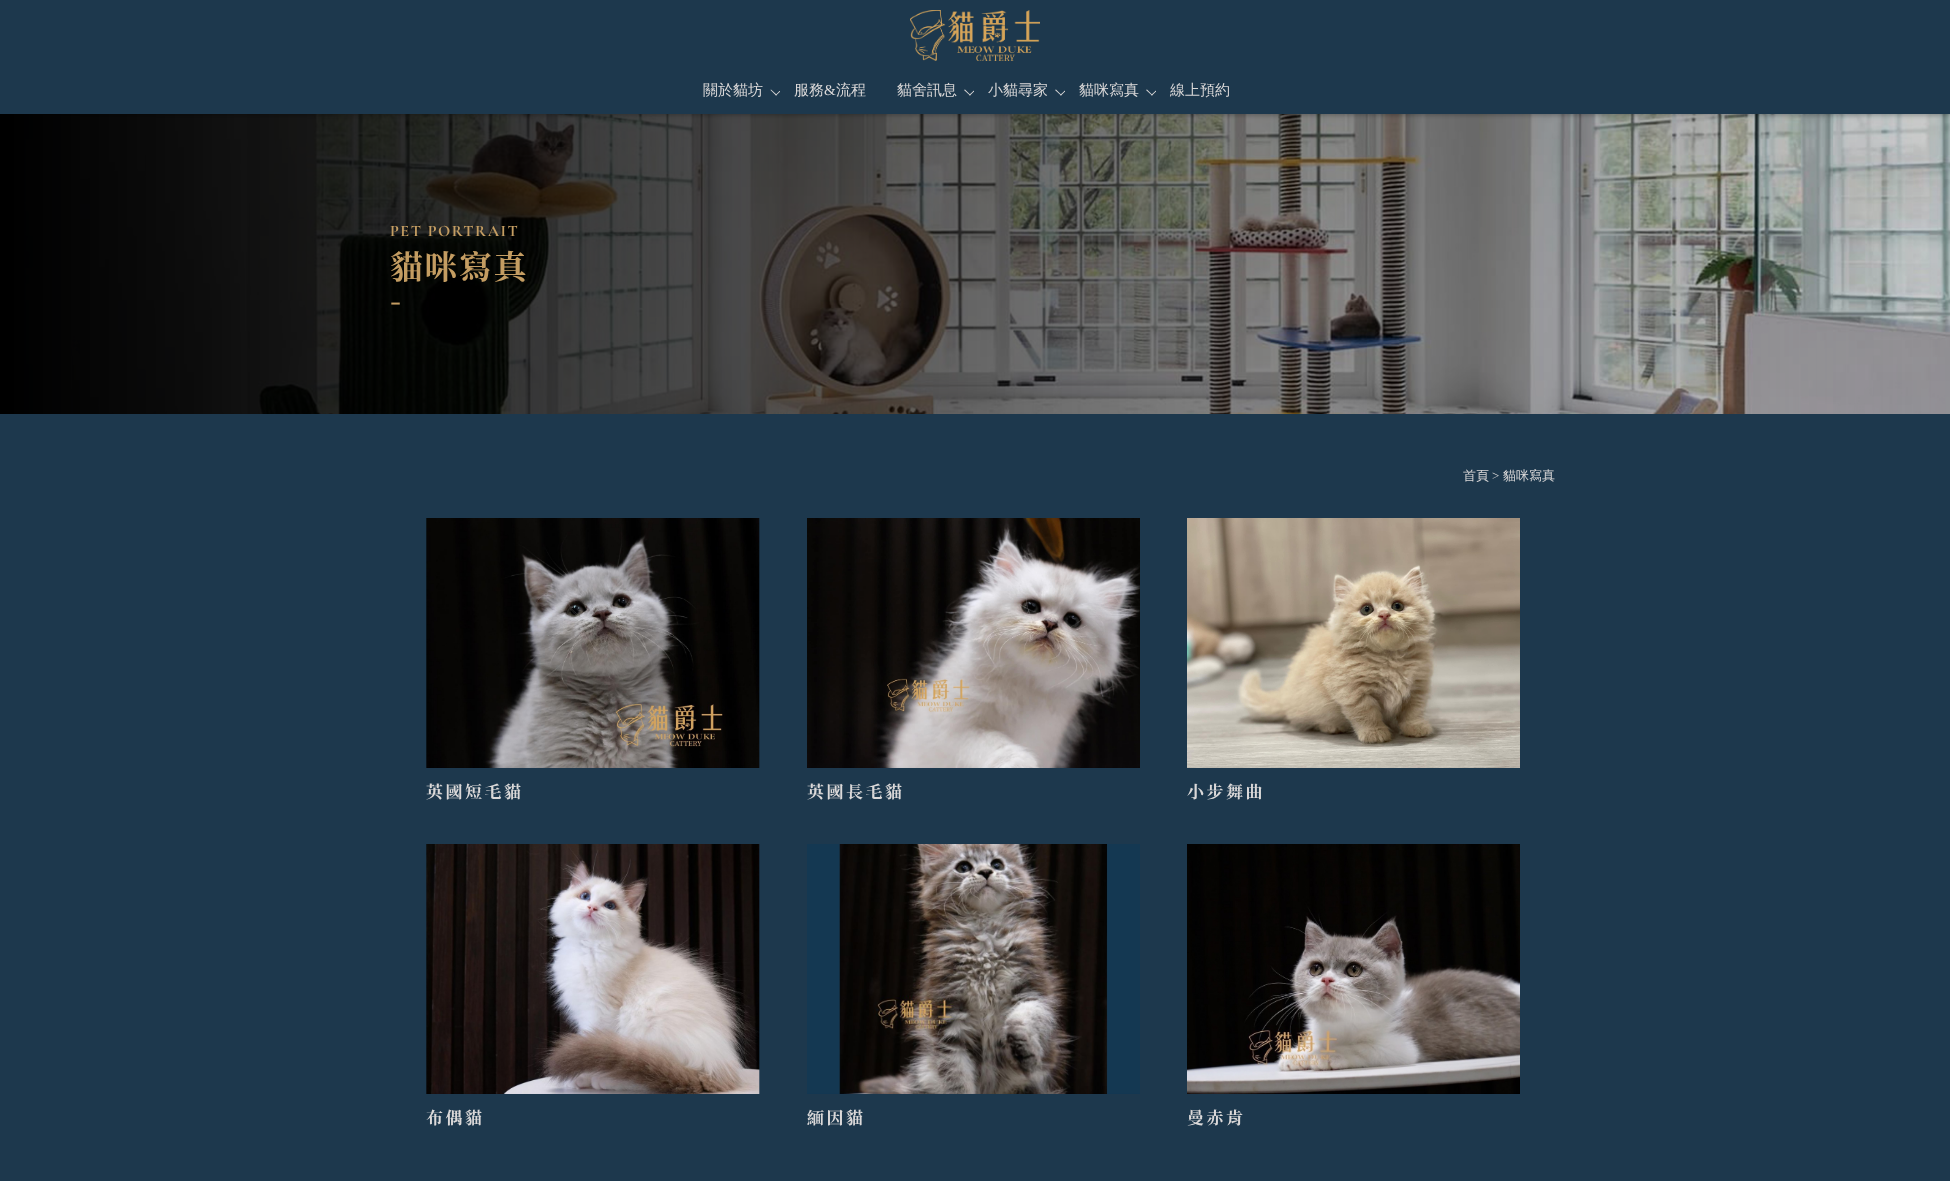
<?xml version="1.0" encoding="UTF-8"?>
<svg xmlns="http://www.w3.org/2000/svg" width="1950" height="1181">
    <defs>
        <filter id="blur1" x="-50%" y="-200%" width="200%" height="500%"><feGaussianBlur stdDeviation="2.5"/></filter>
        <clipPath id="clip1"><rect x="703" y="70" width="77" height="40"/></clipPath>
        <clipPath id="clip2"><rect x="897" y="70" width="77" height="40"/></clipPath>
        <clipPath id="clip3"><rect x="988" y="70" width="77" height="40"/></clipPath>
        <clipPath id="clip4"><rect x="1079" y="70" width="77" height="40"/></clipPath>
    </defs>
    <rect width="100%" height="100%" fill="#1D384D"/>
    <image x="0" y="114" width="1950" height="300" href="img_02.png"/>
    <rect x="1" y="1" width="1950" height="114" fill="#000000" fill-opacity="0.3" filter="url(#blur1)"/>
    <rect x="0" y="0" width="1950" height="114" fill="#1D384D"/>
    <image x="910" y="10" width="130" height="51" href="img_01.png"/>
    <text x="703" y="95" font-family="WenQuanYi Zen Hei" font-size="15" font-weight="500" fill="#DBD9D9">關於貓坊</text>
    <g clip-path="url(#clip1)">
        <path d="M 781 89.5 L 782 90 L 776 95.5 L 775.5 95 Z" fill="#DBD9D9"/>
    </g>
    <path d="M 771 89.5 L 777 95 L 776 95.5 L 770.5 90 Z" fill="#DBD9D9"/>
    <text x="794" y="95" font-family="WenQuanYi Zen Hei" font-size="15" font-weight="500" fill="#DBD9D9">服務</text>
    <text x="824" y="95" font-family="Liberation Serif" font-size="15" fill="#DBD9D9">&amp;</text>
    <text x="836" y="95" font-family="WenQuanYi Zen Hei" font-size="15" font-weight="500" fill="#DBD9D9">流程</text>
    <text x="897" y="95" font-family="WenQuanYi Zen Hei" font-size="15" font-weight="500" fill="#DBD9D9">貓舍訊息</text>
    <g clip-path="url(#clip2)">
        <path d="M 975 89.5 L 975.5 90 L 970 95.5 L 969 95 Z" fill="#DBD9D9"/>
    </g>
    <path d="M 965 89.5 L 970.5 95 L 970 95.5 L 964 90 Z" fill="#DBD9D9"/>
    <text x="988" y="95" font-family="WenQuanYi Zen Hei" font-size="15" font-weight="500" fill="#DBD9D9">小貓尋家</text>
    <g clip-path="url(#clip3)">
        <path d="M 1066 89.5 L 1066.5 90 L 1061 95.5 L 1060 95 Z" fill="#DBD9D9"/>
    </g>
    <path d="M 1056 89.5 L 1061.5 95 L 1061 95.5 L 1055 90 Z" fill="#DBD9D9"/>
    <text x="1079" y="95" font-family="WenQuanYi Zen Hei" font-size="15" font-weight="500" fill="#DBD9D9">貓咪寫真</text>
    <g clip-path="url(#clip4)">
        <path d="M 1157 89.5 L 1157.5 90 L 1152 95.5 L 1151 95 Z" fill="#DBD9D9"/>
    </g>
    <path d="M 1147 89.5 L 1152.5 95 L 1152 95.5 L 1146 90 Z" fill="#DBD9D9"/>
    <text x="1170" y="95" font-family="WenQuanYi Zen Hei" font-size="15" font-weight="500" fill="#DBD9D9">線上預約</text>
    <text x="390" y="236" font-family="Cormorant Garamond" font-size="16" font-weight="700" letter-spacing="1.5" fill="#C49D62">PET PORTRAIT</text>
    <text x="390" y="279" font-family="Noto Serif TC" font-size="33" font-weight="700" letter-spacing="1.5" fill="#C49D62">貓咪寫真</text>
    <text x="390" y="312" font-family="Noto Serif TC" font-size="30" font-weight="700" letter-spacing="1.5" fill="#C49D62">-</text>
    <text x="1463" y="480" font-family="WenQuanYi Zen Hei" font-size="13" font-weight="500" fill="#DBD9D9">首頁</text>
    <text x="1492" y="480" font-family="Liberation Serif" font-size="13" fill="#DBD9D9">&gt;</text>
    <text x="1503" y="480" font-family="WenQuanYi Zen Hei" font-size="13" font-weight="500" fill="#DBD9D9">貓咪寫真</text>
    <image x="426" y="518" width="334" height="250" href="img_03.png"/>
    <text x="426" y="798" font-family="Noto Serif TC" font-size="17" font-weight="700" letter-spacing="2.5" fill="#DBD9D9">英國短毛貓</text>
    <image x="807" y="518" width="333" height="250" href="img_04.png"/>
    <text x="807" y="798" font-family="Noto Serif TC" font-size="17" font-weight="700" letter-spacing="2.5" fill="#DBD9D9">英國長毛貓</text>
    <image x="1187" y="518" width="333" height="250" href="img_05.png"/>
    <text x="1187" y="798" font-family="Noto Serif TC" font-size="17" font-weight="700" letter-spacing="2.5" fill="#DBD9D9">小步舞曲</text>
    <image x="426" y="844" width="334" height="250" href="img_06.png"/>
    <text x="426" y="1124" font-family="Noto Serif TC" font-size="17" font-weight="700" letter-spacing="2.5" fill="#DBD9D9">布偶貓</text>
    <image x="807" y="844" width="333" height="250" href="img_07.png"/>
    <text x="807" y="1124" font-family="Noto Serif TC" font-size="17" font-weight="700" letter-spacing="2.5" fill="#DBD9D9">緬因貓</text>
    <image x="1187" y="844" width="333" height="250" href="img_08.png"/>
    <text x="1187" y="1124" font-family="Noto Serif TC" font-size="17" font-weight="700" letter-spacing="2.5" fill="#DBD9D9">曼赤肯</text>
</svg>
